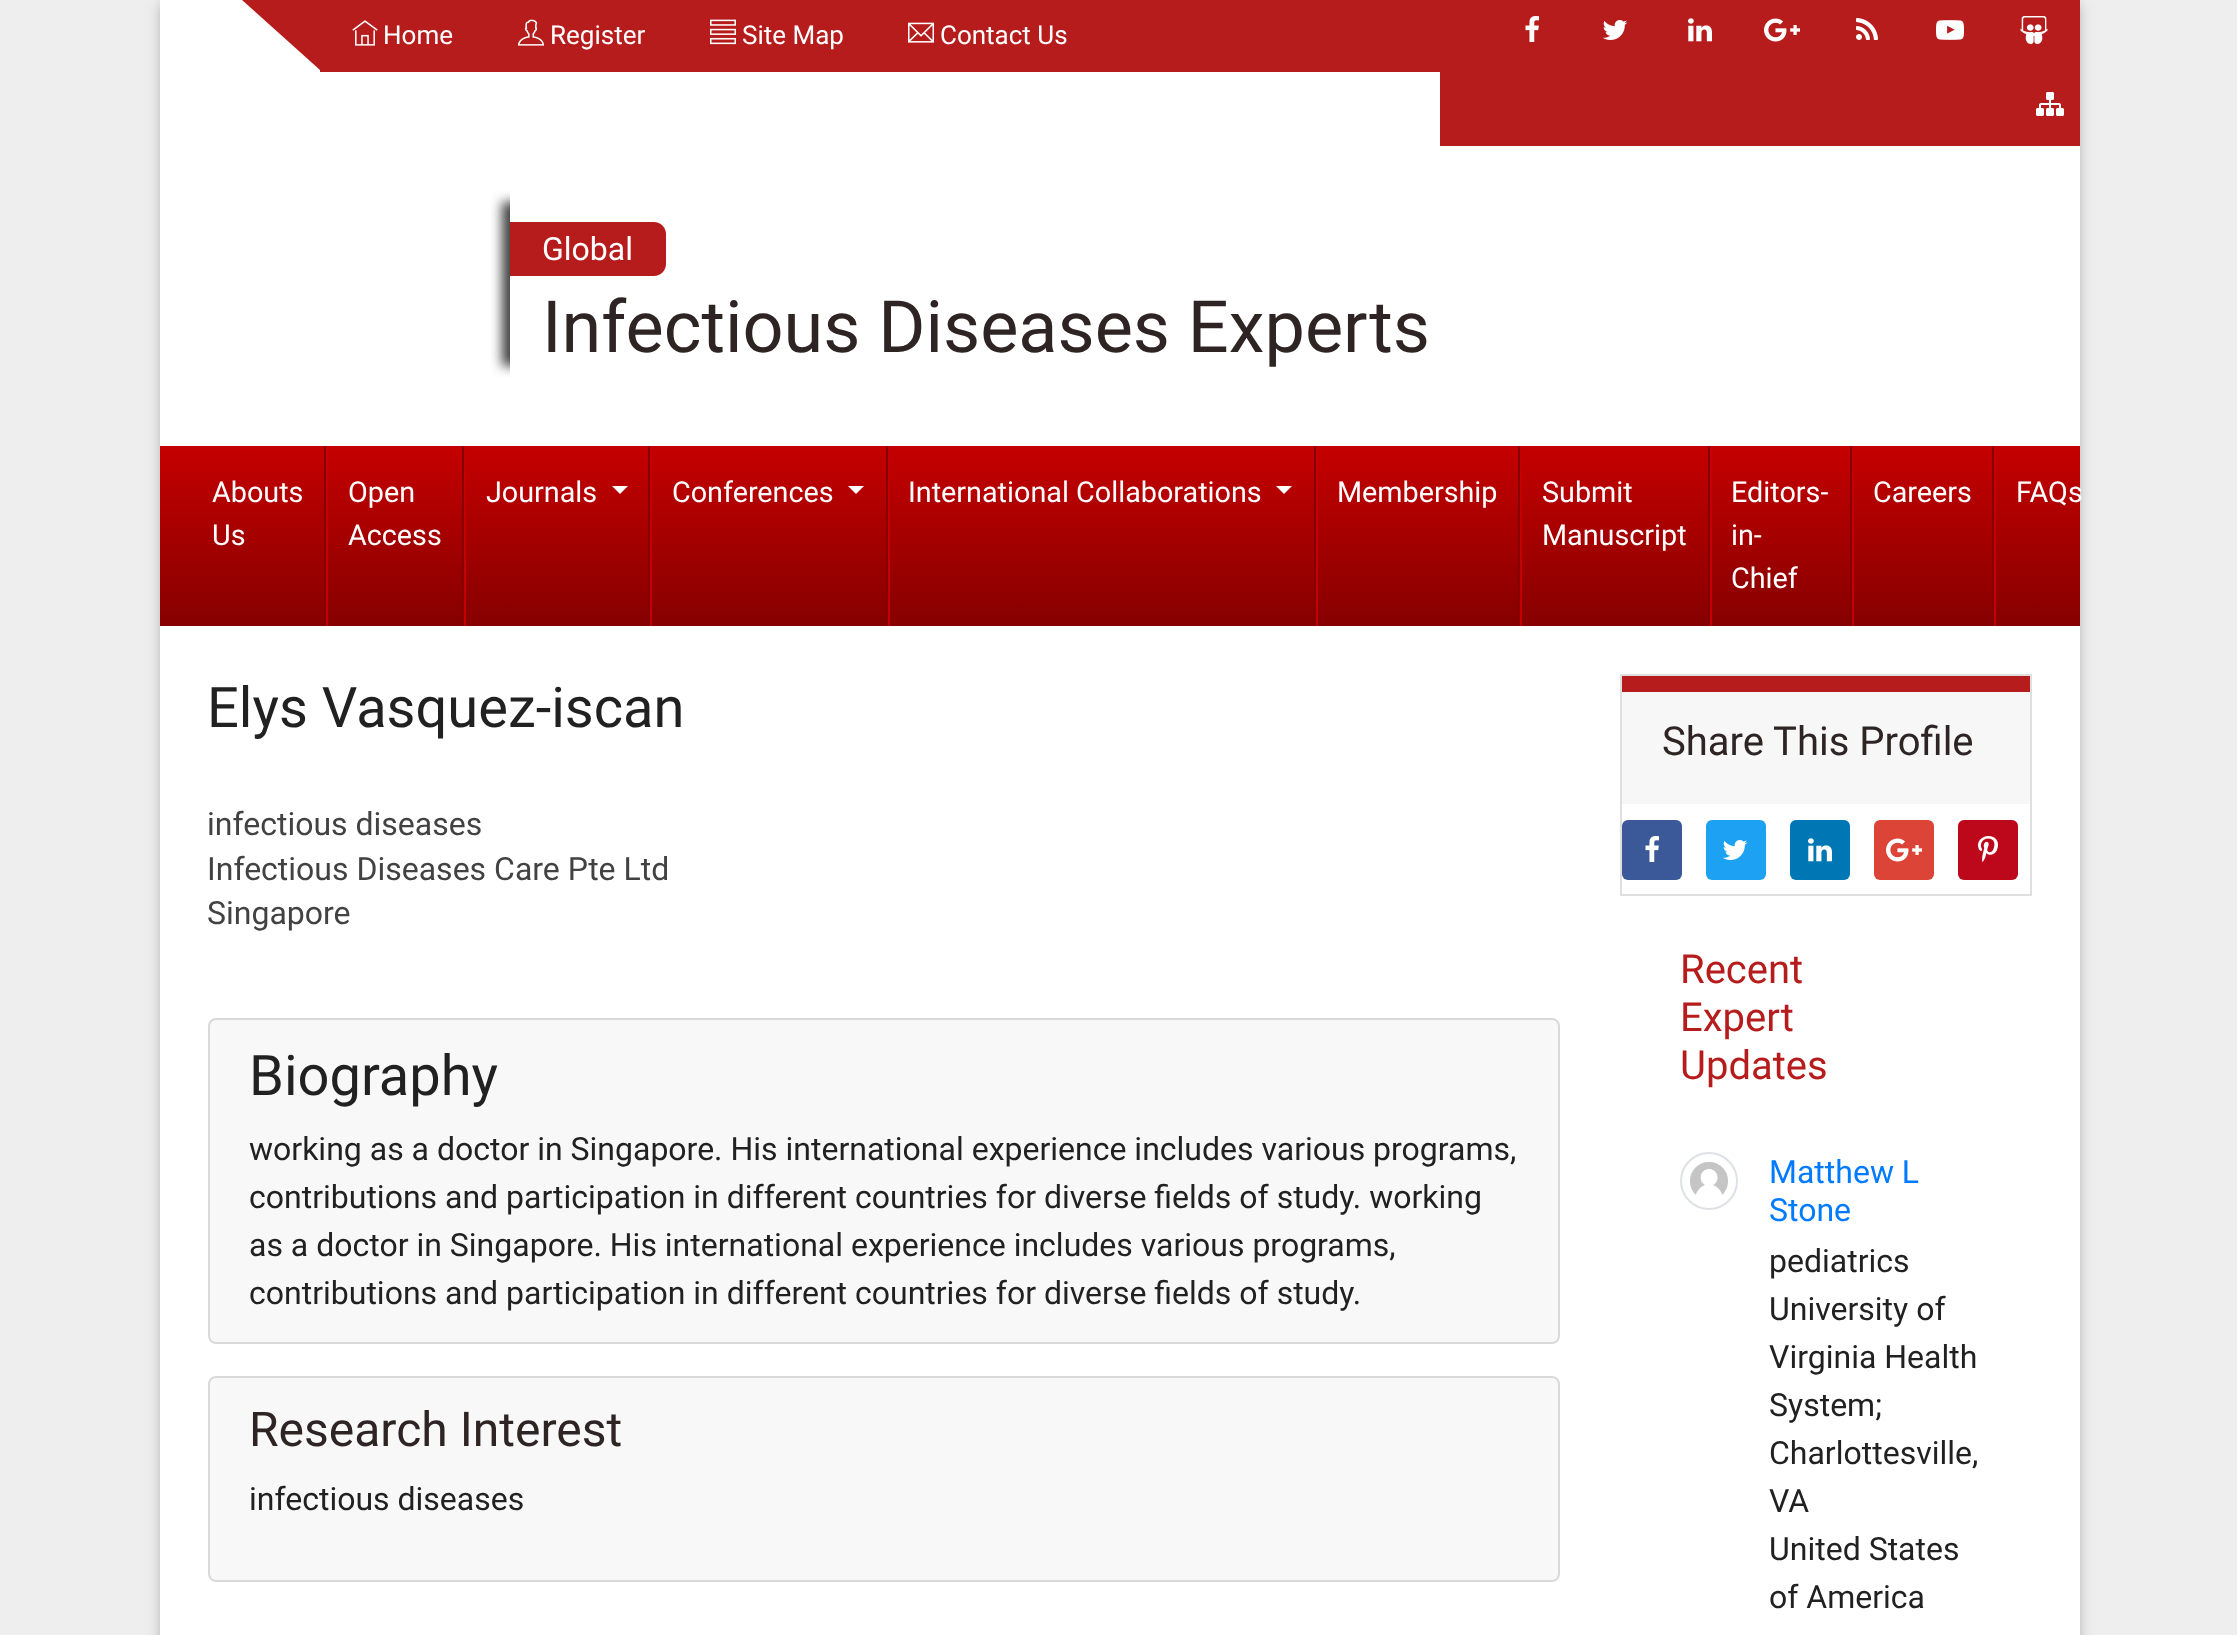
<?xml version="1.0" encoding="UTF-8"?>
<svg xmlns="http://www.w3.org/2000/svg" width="2237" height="1635">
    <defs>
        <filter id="blur1" x="-50%" y="-200%" width="200%" height="500%"><feGaussianBlur stdDeviation="8"/></filter>
        <filter id="blur2" x="-50%" y="-200%" width="200%" height="500%"><feGaussianBlur stdDeviation="4"/></filter>
        <clipPath id="clip1"><rect x="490" y="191" width="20" height="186"/></clipPath>
        <filter id="blur3" x="-50%" y="-200%" width="200%" height="500%"><feGaussianBlur stdDeviation="6"/></filter>
        <linearGradient id="g1" gradientUnits="userSpaceOnUse" x1="1120" y1="446" x2="1120" y2="626"><stop offset="0" stop-color="#C50000"/><stop offset="1" stop-color="#860000"/></linearGradient>
    </defs>
    <rect width="100%" height="100%" fill="#EEEEEE"/>
    <rect x="160" y="2" width="1920" height="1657" fill="#000000" fill-opacity="0.12" filter="url(#blur1)"/>
    <rect x="160" y="6" width="1920" height="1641" fill="#000000" fill-opacity="0.14" filter="url(#blur2)"/>
    <rect x="160" y="0" width="1920" height="1635" fill="#FFFFFF"/>
    <rect x="320" y="0" width="1120" height="72" fill="#B71C1C"/>
    <path d="M 242 0 H 320 V 70 Z" fill="#B71C1C"/>
    <image x="352" y="20" width="26" height="26" href="img_01.png"/>
    <text x="383" y="44" font-family="Roboto" font-size="26" fill="#FFFFFF">Home</text>
    <image x="518" y="19" width="26" height="27" href="img_02.png"/>
    <text x="550" y="44" font-family="Roboto" font-size="26" fill="#FFFFFF">Register</text>
    <image x="710" y="19" width="26" height="26" href="img_03.png"/>
    <text x="742" y="44" font-family="Roboto" font-size="26" fill="#FFFFFF">Site Map</text>
    <image x="908" y="22" width="26" height="21" href="img_04.png"/>
    <text x="940" y="44" font-family="Roboto" font-size="26" fill="#FFFFFF">Contact Us</text>
    <rect x="1440" y="0" width="640" height="146" fill="#B71C1C"/>
    <image x="1525" y="16" width="14" height="26" href="img_05.png"/>
    <image x="1602" y="20" width="26" height="20" href="img_06.png"/>
    <image x="1688" y="18" width="24" height="24" href="img_07.png"/>
    <image x="1764" y="18" width="36" height="24" href="img_08.png"/>
    <image x="1856" y="18" width="22" height="22" href="img_09.png"/>
    <image x="1936" y="20" width="28" height="20" href="img_10.png"/>
    <image x="2020" y="16" width="28" height="28" href="img_11.png"/>
    <image x="2036" y="92" width="28" height="24" href="img_12.png"/>
    <g clip-path="url(#clip1)">
        <rect x="502" y="202" width="1018" height="164" fill="#000000" fill-opacity="0.75" filter="url(#blur3)"/>
    </g>
    <path d="M 510 222 H 654 C 660.5 222 666 227.5 666 234 V 264 C 666 270.5 660.5 276 654 276 H 510 Z" fill="#B71C1C"/>
    <text x="542" y="260" font-family="Roboto" font-size="32" fill="#FFFFFF">Global</text>
    <text x="542" y="352" font-family="Roboto" font-size="72" fill="#2F2424">Infectious Diseases Experts</text>
    <rect x="160" y="446" width="1920" height="180" fill="url(#g1)"/>
    <rect x="326" y="446" width="2" height="180" fill="#C50000"/>
    <rect x="324" y="446" width="2" height="180" fill="#860000"/>
    <text font-family="Roboto" font-size="28.75" fill="#FFFFFF">
        <tspan x="212" y="502">Abouts</tspan>
        <tspan x="212" y="545">Us</tspan>
    </text>
    <rect x="464" y="446" width="2" height="180" fill="#C50000"/>
    <rect x="462" y="446" width="2" height="180" fill="#860000"/>
    <text font-family="Roboto" font-size="28.75" fill="#FFFFFF">
        <tspan x="348" y="502">Open</tspan>
        <tspan x="348" y="545">Access</tspan>
    </text>
    <rect x="650" y="446" width="2" height="180" fill="#C50000"/>
    <rect x="648" y="446" width="2" height="180" fill="#860000"/>
    <text x="486" y="502" font-family="Roboto" font-size="28.75" fill="#FFFFFF">Journals</text>
    <path d="M 612 486 H 628 L 620 494 Z" fill="#FFFFFF"/>
    <rect x="888" y="446" width="2" height="180" fill="#C50000"/>
    <rect x="886" y="446" width="2" height="180" fill="#860000"/>
    <text x="672" y="502" font-family="Roboto" font-size="28.75" fill="#FFFFFF">Conferences</text>
    <path d="M 848 486 H 864 L 856 494 Z" fill="#FFFFFF"/>
    <rect x="1316" y="446" width="2" height="180" fill="#C50000"/>
    <rect x="1314" y="446" width="2" height="180" fill="#860000"/>
    <text x="908" y="502" font-family="Roboto" font-size="28.75" fill="#FFFFFF">International Collaborations</text>
    <path d="M 1276 486 H 1292 L 1284 494 Z" fill="#FFFFFF"/>
    <rect x="1520" y="446" width="2" height="180" fill="#C50000"/>
    <rect x="1518" y="446" width="2" height="180" fill="#860000"/>
    <text x="1337" y="502" font-family="Roboto" font-size="28.75" fill="#FFFFFF">Membership</text>
    <rect x="1710" y="446" width="2" height="180" fill="#C50000"/>
    <rect x="1708" y="446" width="2" height="180" fill="#860000"/>
    <text font-family="Roboto" font-size="28.75" fill="#FFFFFF">
        <tspan x="1542" y="502">Submit</tspan>
        <tspan x="1542" y="545">Manuscript</tspan>
    </text>
    <rect x="1852" y="446" width="2" height="180" fill="#C50000"/>
    <rect x="1850" y="446" width="2" height="180" fill="#860000"/>
    <text font-family="Roboto" font-size="28.75" fill="#FFFFFF">
        <tspan x="1731" y="502">Editors-</tspan>
        <tspan x="1731" y="545">in-</tspan>
        <tspan x="1731" y="588">Chief</tspan>
    </text>
    <rect x="1994" y="446" width="2" height="180" fill="#C50000"/>
    <rect x="1992" y="446" width="2" height="180" fill="#860000"/>
    <text x="1873" y="502" font-family="Roboto" font-size="28.75" fill="#FFFFFF">Careers</text>
    <text x="2016" y="502" font-family="Roboto" font-size="28.75" fill="#FFFFFF">FAQs</text>
    <text x="207" y="727" font-family="Roboto" font-size="56" fill="#212121">Elys Vasquez-iscan</text>
    <text font-family="Roboto" font-size="32" fill="#424242">
        <tspan x="207" y="835">infectious diseases</tspan>
        <tspan x="207" y="880">Infectious Diseases Care Pte Ltd</tspan>
        <tspan x="207" y="924">Singapore</tspan>
    </text>
    <rect x="208" y="1018" width="1352" height="326" rx="8" fill="#F8F8F8"/>
    <rect x="209" y="1019" width="1350" height="324" rx="7" fill="none" stroke="#000000" stroke-opacity="0.12" stroke-width="2"/>
    <text x="249" y="1095" font-family="Roboto" font-size="56" fill="#212121">Biography</text>
    <text font-family="Roboto" font-size="32" fill="#212121">
        <tspan x="249" y="1160">working as a doctor in Singapore. His international experience includes various programs,</tspan>
        <tspan x="249" y="1208">contributions and participation in different countries for diverse fields of study. working</tspan>
        <tspan x="249" y="1256">as a doctor in Singapore. His international experience includes various programs,</tspan>
        <tspan x="249" y="1304">contributions and participation in different countries for diverse fields of study.</tspan>
    </text>
    <rect x="208" y="1376" width="1352" height="206" rx="8" fill="#F8F8F8"/>
    <rect x="209" y="1377" width="1350" height="204" rx="7" fill="none" stroke="#000000" stroke-opacity="0.12" stroke-width="2"/>
    <text x="249" y="1446" font-family="Roboto" font-size="48" fill="#2F2424">Research Interest</text>
    <text x="249" y="1510" font-family="Roboto" font-size="32" fill="#212121">infectious diseases</text>
    <rect x="1621" y="675" width="410" height="220" fill="none" stroke="#DFDFDF" stroke-width="2"/>
    <rect x="1622" y="692" width="408" height="112" fill="#F7F7F7"/>
    <rect x="1622" y="676" width="408" height="16" fill="#B71C1C"/>
    <text x="1662" y="755" font-family="Roboto" font-size="40" fill="#2F2424">Share This Profile</text>
    <rect x="1622" y="820" width="60" height="60" rx="6" fill="#3B5998"/>
    <image x="1645" y="836" width="14" height="26" href="img_13.png"/>
    <rect x="1706" y="820" width="60" height="60" rx="6" fill="#1DA1F2"/>
    <image x="1722" y="840" width="26" height="20" href="img_14.png"/>
    <rect x="1790" y="820" width="60" height="60" rx="6" fill="#0077B5"/>
    <image x="1808" y="838" width="24" height="24" href="img_15.png"/>
    <rect x="1874" y="820" width="60" height="60" rx="6" fill="#DB4437"/>
    <image x="1886" y="838" width="36" height="24" href="img_16.png"/>
    <rect x="1958" y="820" width="60" height="60" rx="6" fill="#BD081C"/>
    <image x="1978" y="836" width="20" height="26" href="img_17.png"/>
    <text font-family="Roboto" font-size="40" fill="#B71C1C">
        <tspan x="1680" y="983">Recent</tspan>
        <tspan x="1680" y="1031">Expert</tspan>
        <tspan x="1680" y="1079">Updates</tspan>
    </text>
    <circle cx="1709" cy="1181" r="28" fill="none" stroke="#DEE2E6" stroke-width="2"/>
    <image x="1690" y="1162" width="38" height="33" href="img_18.png"/>
    <text font-family="Roboto" font-size="32" fill="#007BFF">
        <tspan x="1769" y="1183">Matthew L</tspan>
        <tspan x="1769" y="1221">Stone</tspan>
    </text>
    <text font-family="Roboto" font-size="32" fill="#212121">
        <tspan x="1769" y="1272">pediatrics</tspan>
        <tspan x="1769" y="1320">University of</tspan>
        <tspan x="1769" y="1368">Virginia Health</tspan>
        <tspan x="1769" y="1416">System;</tspan>
        <tspan x="1769" y="1464">Charlottesville,</tspan>
        <tspan x="1769" y="1512">VA</tspan>
        <tspan x="1769" y="1560">United States</tspan>
        <tspan x="1769" y="1608">of America</tspan>
    </text>
</svg>
